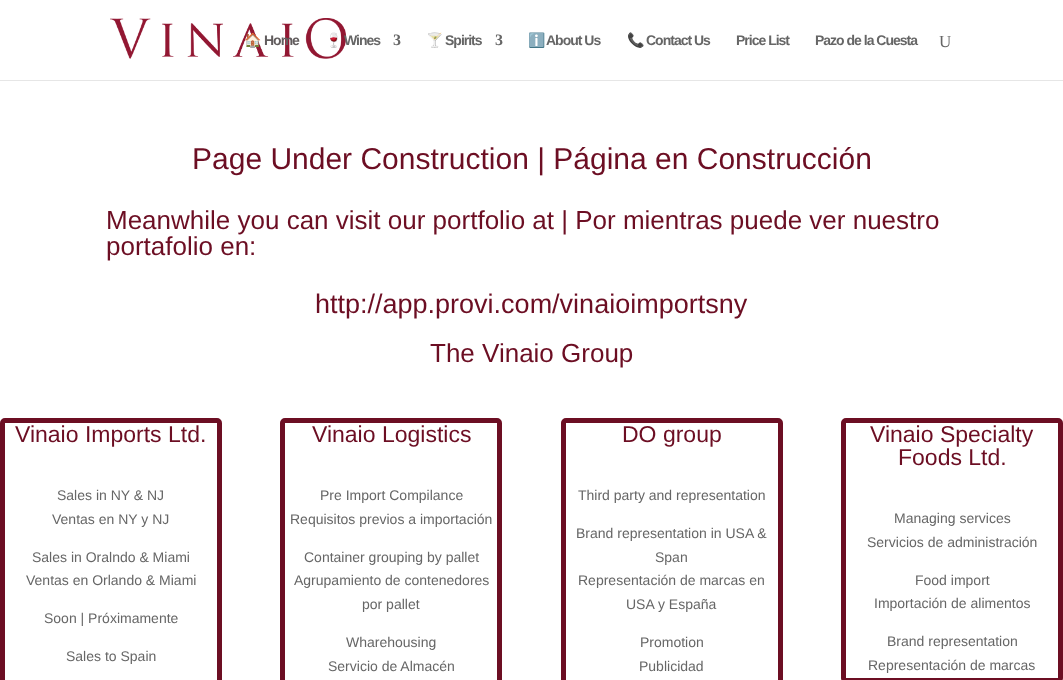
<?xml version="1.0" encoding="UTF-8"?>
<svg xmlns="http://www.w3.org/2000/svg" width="1063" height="680">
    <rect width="100%" height="100%" fill="#FFFFFF"/>
    <rect x="0" y="80" width="1063" height="1" fill="#E6E6E6"/>
    <image x="110" y="18" width="236" height="41" href="img_01.png"/>
    <text x="244" y="45" font-family="Noto Color Emoji" font-size="14" font-weight="700" letter-spacing="-1" fill="#59494D">🏠</text>
    <text x="264" y="45" font-family="Liberation Sans" font-size="14" font-weight="700" letter-spacing="-1" fill="#615C5D">Home</text>
    <text x="325" y="45" font-family="Noto Color Emoji" font-size="14" font-weight="700" letter-spacing="-1" fill="#615C5D">🍷</text>
    <text x="344" y="45" font-family="Liberation Sans" font-size="14" font-weight="700" letter-spacing="-1" fill="#666666">Wines</text>
    <text x="393" y="45" font-family="Liberation Serif" font-size="16" font-weight="700" letter-spacing="-1" fill="#666666">3</text>
    <text x="426" y="45" font-family="Noto Color Emoji" font-size="14" font-weight="700" letter-spacing="-1" fill="#666666">🍸</text>
    <text x="445" y="45" font-family="Liberation Sans" font-size="14" font-weight="700" letter-spacing="-1" fill="#666666">Spirits</text>
    <text x="495" y="45" font-family="Liberation Serif" font-size="16" font-weight="700" letter-spacing="-1" fill="#666666">3</text>
    <text x="528" y="45" font-family="Noto Color Emoji" font-size="14" font-weight="700" letter-spacing="-1" fill="#666666">ℹ️</text>
    <text x="546" y="45" font-family="Liberation Sans" font-size="14" font-weight="700" letter-spacing="-1" fill="#666666">About Us</text>
    <text x="627" y="45" font-family="Noto Color Emoji" font-size="14" font-weight="700" letter-spacing="-1" fill="#666666">📞</text>
    <text x="646" y="45" font-family="Liberation Sans" font-size="14" font-weight="700" letter-spacing="-1" fill="#666666">Contact Us</text>
    <text x="736" y="45" font-family="Liberation Sans" font-size="14" font-weight="700" letter-spacing="-1" fill="#666666">Price List</text>
    <text x="815" y="45" font-family="Liberation Sans" font-size="14" font-weight="700" letter-spacing="-1" fill="#666666">Pazo de la Cuesta</text>
    <text x="939" y="47" font-family="Liberation Serif" font-size="17" fill="#666666">U</text>
    <text x="192" y="169" font-family="Liberation Sans" font-size="30" fill="#6C0E23">Page Under Construction | Página en Construcción</text>
    <text font-family="Liberation Sans" font-size="26" fill="#6C0E23">
        <tspan x="106" y="229">Meanwhile you can visit our portfolio at | Por mientras puede ver nuestro</tspan>
        <tspan x="106" y="255">portafolio en:</tspan>
    </text>
    <text x="315" y="313" font-family="Liberation Sans" font-size="27" fill="#6C0E23">http://app.provi.com/vinaioimportsny</text>
    <text x="430" y="362" font-family="Liberation Sans" font-size="26" fill="#6C0E23">The Vinaio Group</text>
    <rect x="2.5" y="420.5" width="217" height="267" rx="2.5" fill="none" stroke="#6C0E23" stroke-width="5"/>
    <text x="15" y="442" font-family="Liberation Sans" font-size="23" fill="#6C0E23">Vinaio Imports Ltd.</text>
    <text x="57" y="500" font-family="Liberation Sans" font-size="14" fill="#666666">Sales in NY &amp; NJ</text>
    <text x="52" y="524" font-family="Liberation Sans" font-size="14" fill="#666666">Ventas en NY y NJ</text>
    <text x="32" y="562" font-family="Liberation Sans" font-size="14" fill="#666666">Sales in Oralndo &amp; Miami</text>
    <text x="26" y="585" font-family="Liberation Sans" font-size="14" fill="#666666">Ventas en Orlando &amp; Miami</text>
    <text x="44" y="623" font-family="Liberation Sans" font-size="14" fill="#666666">Soon | Próximamente</text>
    <text x="66" y="661" font-family="Liberation Sans" font-size="14" fill="#666666">Sales to Spain</text>
    <rect x="282.5" y="420.5" width="217" height="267" rx="2.5" fill="none" stroke="#6C0E23" stroke-width="5"/>
    <text x="312" y="442" font-family="Liberation Sans" font-size="23" fill="#6C0E23">Vinaio Logistics</text>
    <text x="320" y="500" font-family="Liberation Sans" font-size="14" fill="#666666">Pre Import Compilance</text>
    <text x="290" y="524" font-family="Liberation Sans" font-size="14" fill="#666666">Requisitos previos a importación</text>
    <text x="304" y="562" font-family="Liberation Sans" font-size="14" fill="#666666">Container grouping by pallet</text>
    <text x="294" y="585" font-family="Liberation Sans" font-size="14" fill="#666666">Agrupamiento de contenedores</text>
    <text x="362" y="609" font-family="Liberation Sans" font-size="14" fill="#666666">por pallet</text>
    <text x="346" y="647" font-family="Liberation Sans" font-size="14" fill="#666666">Wharehousing</text>
    <text x="328" y="671" font-family="Liberation Sans" font-size="14" fill="#666666">Servicio de Almacén</text>
    <rect x="563.5" y="420.5" width="217" height="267" rx="2.5" fill="none" stroke="#6C0E23" stroke-width="5"/>
    <text x="622" y="442" font-family="Liberation Sans" font-size="23" fill="#6C0E23">DO group</text>
    <text x="578" y="500" font-family="Liberation Sans" font-size="14" fill="#666666">Third party and representation</text>
    <text x="576" y="538" font-family="Liberation Sans" font-size="14" fill="#666666">Brand representation in USA &amp;</text>
    <text x="655" y="562" font-family="Liberation Sans" font-size="14" fill="#666666">Span</text>
    <text x="578" y="585" font-family="Liberation Sans" font-size="14" fill="#666666">Representación de marcas en</text>
    <text x="626" y="609" font-family="Liberation Sans" font-size="14" fill="#666666">USA y España</text>
    <text x="640" y="647" font-family="Liberation Sans" font-size="14" fill="#666666">Promotion</text>
    <text x="639" y="671" font-family="Liberation Sans" font-size="14" fill="#666666">Publicidad</text>
    <rect x="843.5" y="420.5" width="217" height="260" rx="2.5" fill="none" stroke="#6C0E23" stroke-width="5"/>
    <text x="870" y="442" font-family="Liberation Sans" font-size="23" fill="#6C0E23">Vinaio Specialty</text>
    <text x="898" y="465" font-family="Liberation Sans" font-size="23" fill="#6C0E23">Foods Ltd.</text>
    <text x="894" y="523" font-family="Liberation Sans" font-size="14" fill="#666666">Managing services</text>
    <text x="867" y="547" font-family="Liberation Sans" font-size="14" fill="#666666">Servicios de administración</text>
    <text x="915" y="585" font-family="Liberation Sans" font-size="14" fill="#666666">Food import</text>
    <text x="874" y="608" font-family="Liberation Sans" font-size="14" fill="#666666">Importación de alimentos</text>
    <text x="887" y="646" font-family="Liberation Sans" font-size="14" fill="#666666">Brand representation</text>
    <text x="868" y="670" font-family="Liberation Sans" font-size="14" fill="#666666">Representación de marcas</text>
</svg>
